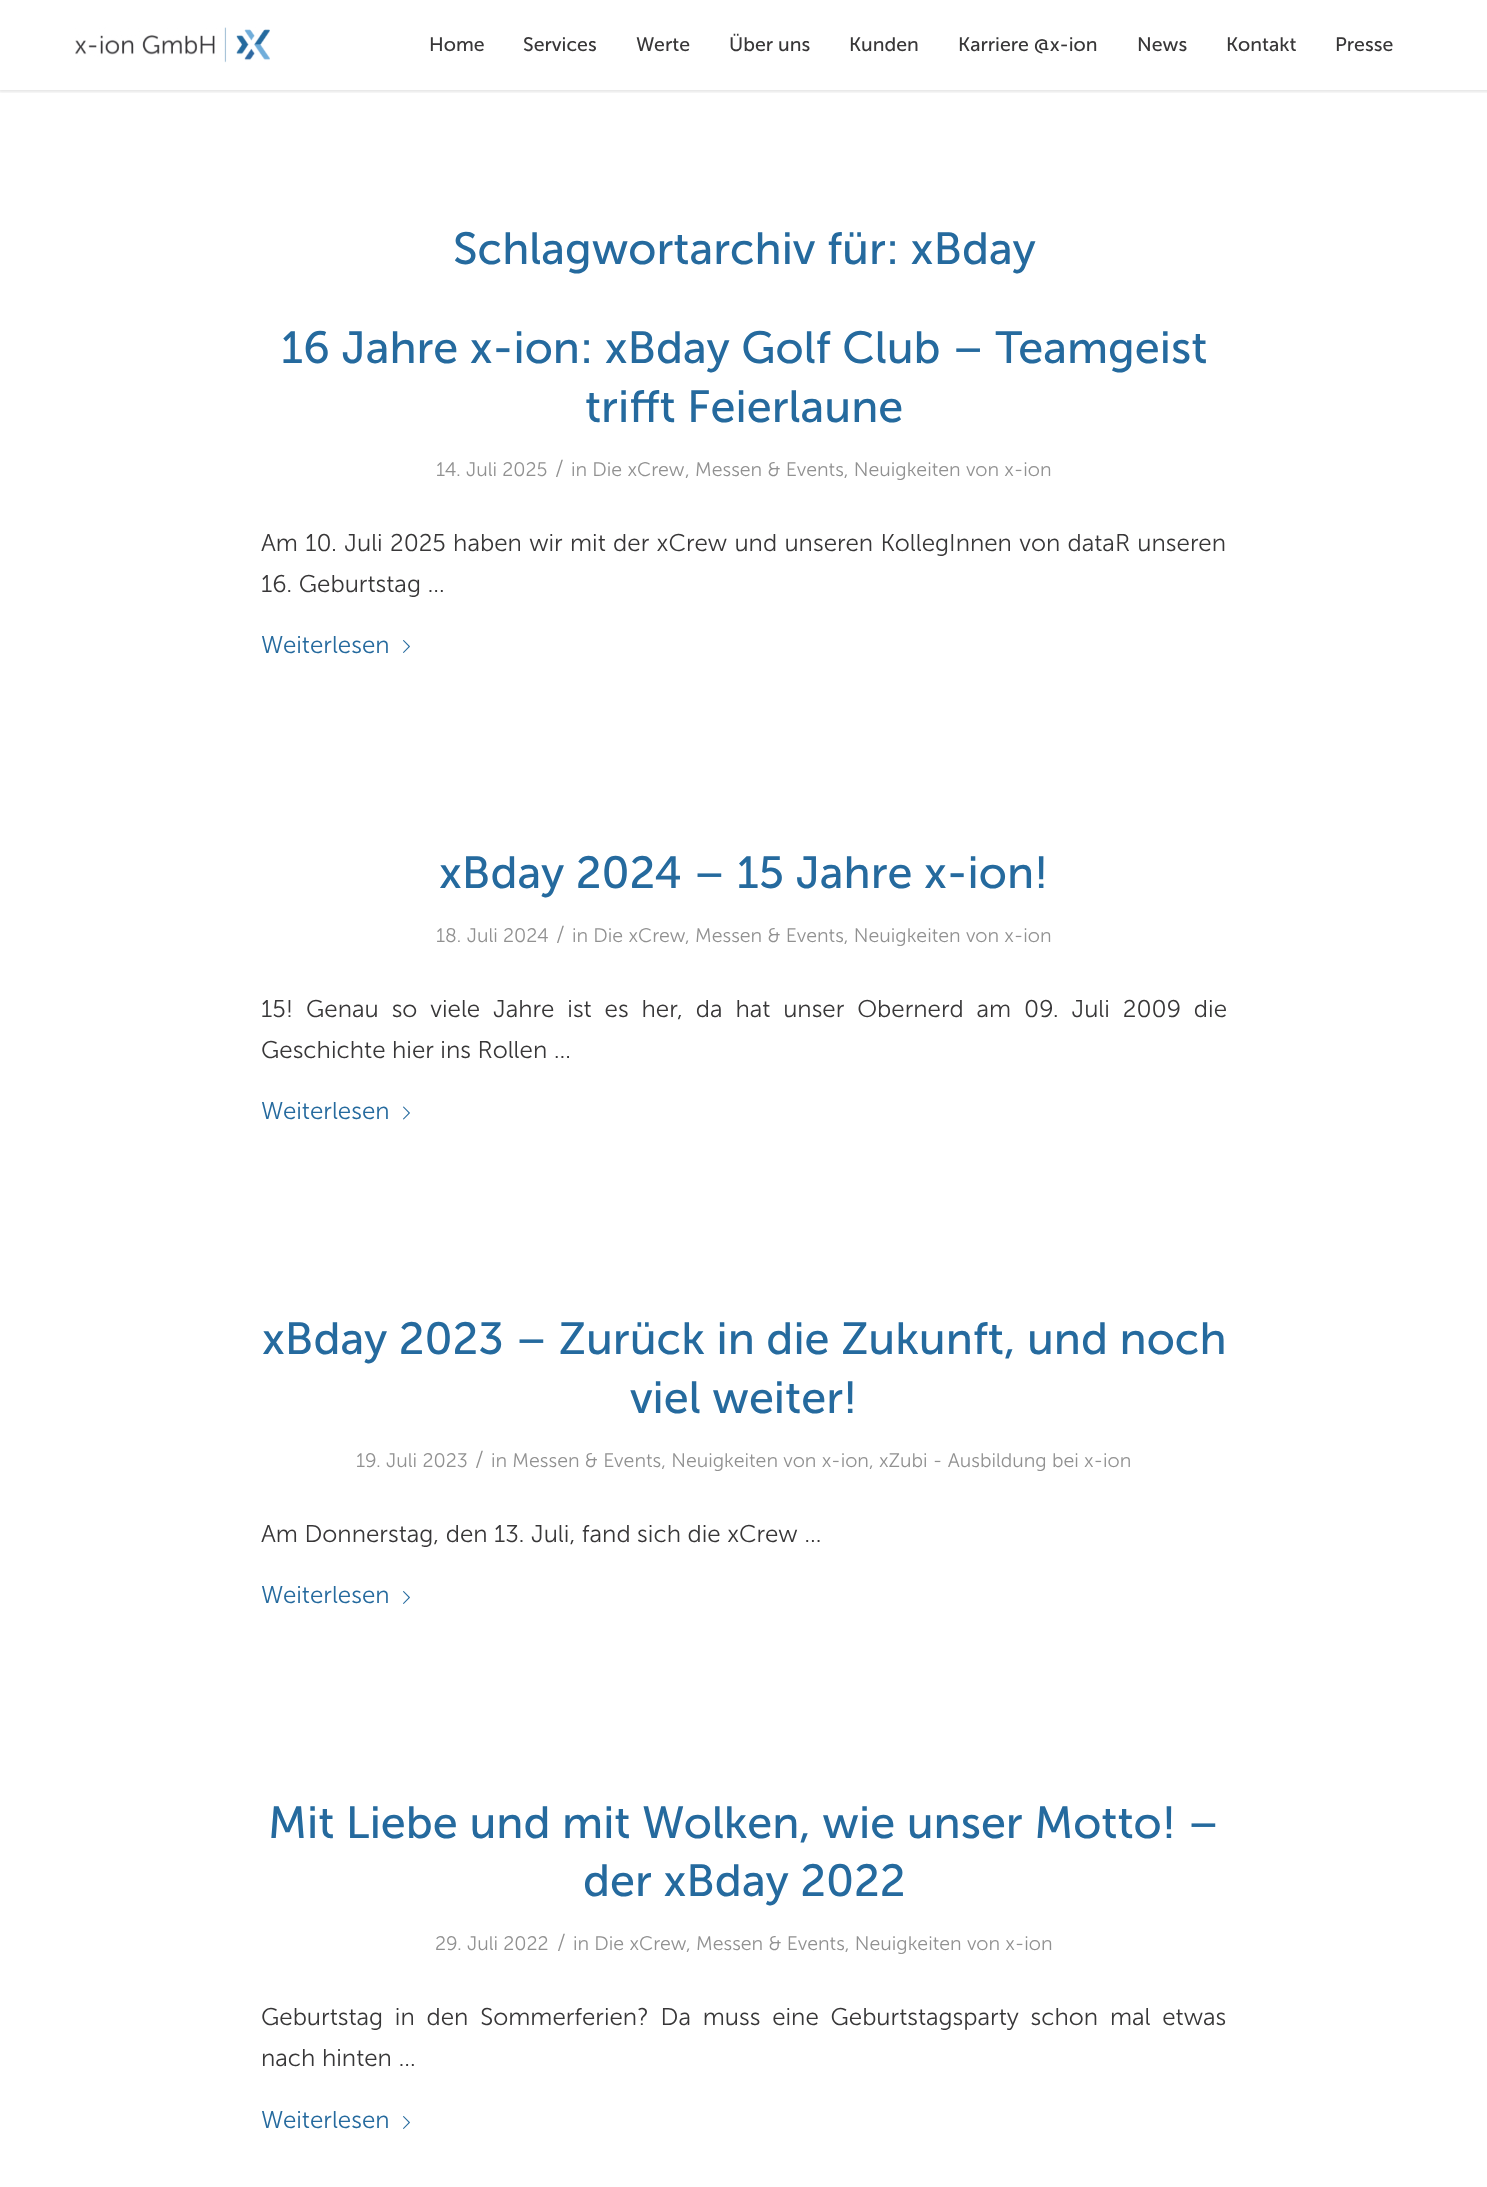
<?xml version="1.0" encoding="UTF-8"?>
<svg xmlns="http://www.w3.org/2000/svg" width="1487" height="2187">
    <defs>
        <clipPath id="clip1"><rect x="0" y="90" width="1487" height="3"/></clipPath>
        <filter id="blur1" x="-50%" y="-200%" width="200%" height="500%"><feGaussianBlur stdDeviation="1.5"/></filter>
    </defs>
    <rect width="100%" height="100%" fill="#FFFFFF"/>
    <g clip-path="url(#clip1)">
        <rect x="-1" y="-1" width="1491" height="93" fill="#000000" fill-opacity="0.1" filter="url(#blur1)"/>
    </g>
    <image x="75" y="27" width="195" height="36" href="img_01.png"/>
    <text x="429" y="51" font-family="Museo Sans" font-size="19.5" fill="#383738">Home</text>
    <text x="523" y="51" font-family="Museo Sans" font-size="19.5" fill="#383738">Services</text>
    <text x="636" y="51" font-family="Museo Sans" font-size="19.5" fill="#383738">Werte</text>
    <text x="729" y="51" font-family="Museo Sans" font-size="19.5" fill="#383738">Über uns</text>
    <text x="849" y="51" font-family="Museo Sans" font-size="19.5" fill="#383738">Kunden</text>
    <text x="958" y="51" font-family="Museo Sans" font-size="19.5" fill="#383738">Karriere @x-ion</text>
    <text x="1137" y="51" font-family="Museo Sans" font-size="19.5" fill="#383738">News</text>
    <text x="1226" y="51" font-family="Museo Sans" font-size="19.5" fill="#383738">Kontakt</text>
    <text x="1335" y="51" font-family="Museo Sans" font-size="19.5" fill="#383738">Presse</text>
    <text x="453" y="264" font-family="Museo Sans" font-size="45" fill="#256A9E">Schlagwortarchiv für: xBday</text>
    <text x="281" y="363" font-family="Museo Sans" font-size="45" fill="#256A9E">16 Jahre x-ion: xBday Golf Club – Teamgeist</text>
    <text x="585" y="422" font-family="Museo Sans" font-size="45" fill="#256A9E">trifft Feierlaune</text>
    <text x="436" y="476" font-family="Museo Sans" font-size="19.55" font-weight="300" fill="#919191">14. Juli 2025</text>
    <text x="555" y="476" font-family="Museo Sans" font-size="22" font-weight="300" fill="#919191">/</text>
    <text x="571" y="476" font-family="Museo Sans" font-size="19.55" font-weight="300" fill="#919191">in Die xCrew</text>
    <text x="685" y="476" font-family="Museo Sans" font-size="19.55" font-weight="300" fill="#919191">, Messen &amp; Events, Neuigkeiten von x-ion</text>
    <text font-family="Museo Sans" font-size="24.15" font-weight="300" fill="#383738">
        <tspan x="261" y="551" word-spacing="0.8">Am 10. Juli 2025 haben wir mit der xCrew und unseren KollegInnen von dataR unseren</tspan>
        <tspan x="261" y="592">16. Geburtstag …</tspan>
    </text>
    <text x="261" y="653" font-family="Museo Sans" font-size="24.15" font-weight="300" fill="#256A9E">Weiterlesen</text>
    <image x="403" y="640" width="7" height="13" href="img_02.png"/>
    <text x="439" y="888" font-family="Museo Sans" font-size="45" fill="#256A9E">xBday 2024 – 15 Jahre x-ion!</text>
    <text x="436" y="942" font-family="Museo Sans" font-size="19.55" font-weight="300" fill="#919191">18. Juli 2024</text>
    <text x="556" y="942" font-family="Museo Sans" font-size="22" font-weight="300" fill="#919191">/</text>
    <text x="572" y="942" font-family="Museo Sans" font-size="19.55" font-weight="300" fill="#919191">in Die xCrew</text>
    <text x="685" y="942" font-family="Museo Sans" font-size="19.55" font-weight="300" fill="#919191">, Messen &amp; Events, Neuigkeiten von x-ion</text>
    <text font-family="Museo Sans" font-size="24.15" font-weight="300" fill="#383738">
        <tspan x="261" y="1017" word-spacing="6.4">15! Genau so viele Jahre ist es her, da hat unser Obernerd am 09. Juli 2009 die</tspan>
        <tspan x="261" y="1058">Geschichte hier ins Rollen …</tspan>
    </text>
    <text x="261" y="1119" font-family="Museo Sans" font-size="24.15" font-weight="300" fill="#256A9E">Weiterlesen</text>
    <image x="403" y="1106" width="7" height="14" href="img_03.png"/>
    <text x="262" y="1354" font-family="Museo Sans" font-size="45" fill="#256A9E">xBday 2023 – Zurück in die Zukunft, und noch</text>
    <text x="630" y="1413" font-family="Museo Sans" font-size="45" fill="#256A9E">viel weiter!</text>
    <text x="356" y="1467" font-family="Museo Sans" font-size="19.55" font-weight="300" fill="#919191">19. Juli 2023</text>
    <text x="475" y="1467" font-family="Museo Sans" font-size="22" font-weight="300" fill="#919191">/</text>
    <text x="491" y="1467" font-family="Museo Sans" font-size="19.55" font-weight="300" fill="#919191">in Messen &amp; Events, Neuigkeiten von x-ion, xZubi - Ausbildung bei x-ion</text>
    <text x="261" y="1542" font-family="Museo Sans" font-size="24.15" font-weight="300" fill="#383738">Am Donnerstag, den 13. Juli, fand sich die xCrew …</text>
    <text x="261" y="1603" font-family="Museo Sans" font-size="24.15" font-weight="300" fill="#256A9E">Weiterlesen</text>
    <image x="403" y="1591" width="7" height="13" href="img_02.png"/>
    <text x="268" y="1838" font-family="Museo Sans" font-size="45" fill="#256A9E">Mit Liebe und mit Wolken, wie unser Motto! –</text>
    <text x="583" y="1896" font-family="Museo Sans" font-size="45" fill="#256A9E">der xBday 2022</text>
    <text x="435" y="1950" font-family="Museo Sans" font-size="19.55" font-weight="300" fill="#919191">29. Juli 2022</text>
    <text x="557" y="1950" font-family="Museo Sans" font-size="22" font-weight="300" fill="#919191">/</text>
    <text x="573" y="1950" font-family="Museo Sans" font-size="19.55" font-weight="300" fill="#919191">in Die xCrew</text>
    <text x="686" y="1950" font-family="Museo Sans" font-size="19.55" font-weight="300" fill="#919191">, Messen &amp; Events, Neuigkeiten von x-ion</text>
    <text font-family="Museo Sans" font-size="24.15" font-weight="300" fill="#383738">
        <tspan x="261" y="2025" word-spacing="5.25">Geburtstag in den Sommerferien? Da muss eine Geburtstagsparty schon mal etwas</tspan>
        <tspan x="261" y="2066">nach hinten …</tspan>
    </text>
    <text x="261" y="2128" font-family="Museo Sans" font-size="24.15" font-weight="300" fill="#256A9E">Weiterlesen</text>
    <image x="403" y="2116" width="7" height="13" href="img_02.png"/>
</svg>
